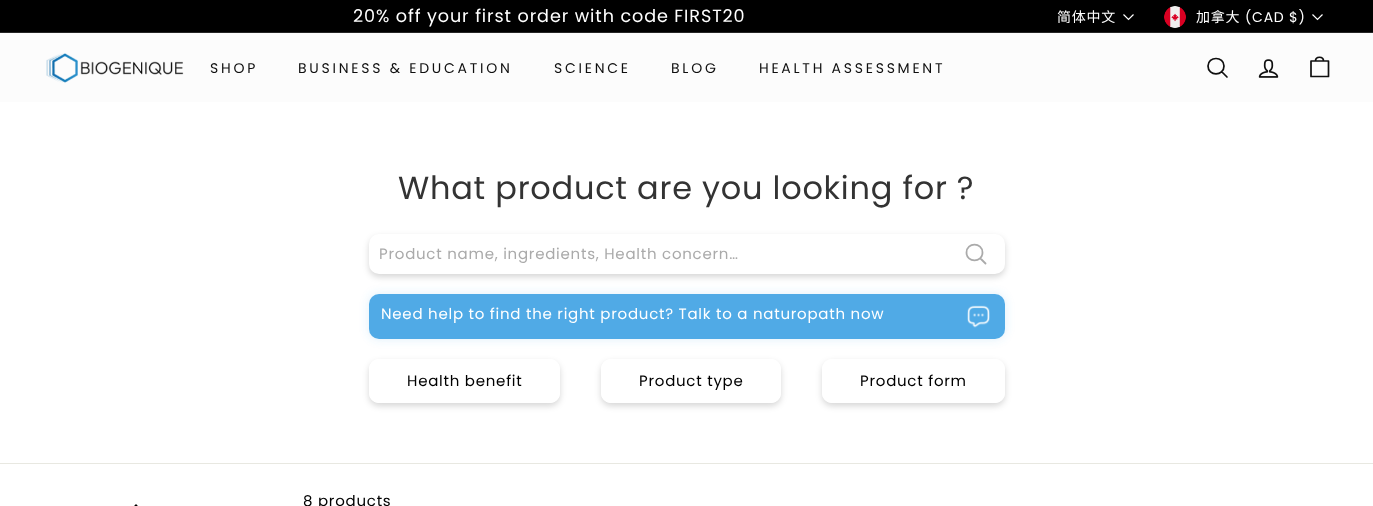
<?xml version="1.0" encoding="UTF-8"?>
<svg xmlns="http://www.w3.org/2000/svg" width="1373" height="506">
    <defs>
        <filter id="blur1" x="-50%" y="-200%" width="200%" height="500%"><feGaussianBlur stdDeviation="3"/></filter>
        <filter id="blur2" x="-50%" y="-200%" width="200%" height="500%"><feGaussianBlur stdDeviation="5"/></filter>
        <clipPath id="clip1"><path d="M 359 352 H 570 V 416 H 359 Z M 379 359 H 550 C 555.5 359 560 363.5 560 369 V 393 C 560 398.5 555.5 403 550 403 H 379 C 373.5 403 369 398.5 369 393 V 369 C 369 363.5 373.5 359 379 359 Z" clip-rule="evenodd"/></clipPath>
        <clipPath id="clip2"><path d="M 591 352 H 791 V 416 H 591 Z M 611 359 H 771 C 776.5 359 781 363.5 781 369 V 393 C 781 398.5 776.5 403 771 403 H 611 C 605.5 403 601 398.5 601 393 V 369 C 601 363.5 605.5 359 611 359 Z" clip-rule="evenodd"/></clipPath>
        <clipPath id="clip3"><path d="M 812 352 H 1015 V 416 H 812 Z M 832 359 H 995 C 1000.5 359 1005 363.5 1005 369 V 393 C 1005 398.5 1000.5 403 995 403 H 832 C 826.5 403 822 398.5 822 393 V 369 C 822 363.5 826.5 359 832 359 Z" clip-rule="evenodd"/></clipPath>
    </defs>
    <rect width="100%" height="100%" fill="#FFFFFF"/>
    <rect x="0" y="0" width="1373" height="32" fill="#000000"/>
    <text x="353" y="22" font-family="Poppins" font-size="17.6" letter-spacing="0.9" fill="#FFFFFF">20% off your first order with code FIRST20</text>
    <text x="1057" y="22" font-family="Noto Sans CJK SC" font-size="14" letter-spacing="0.75" fill="#FFFFFF">简体中文</text>
    <path d="M 1123.5 14.5 L 1128.5 19.5 L 1133.5 14.5" fill="none" stroke="#FFFFFF" stroke-width="1.2"/>
    <image x="1164" y="6" width="22" height="22" href="img_01.png"/>
    <text x="1196" y="22" font-family="Noto Sans CJK SC" font-size="14" letter-spacing="0.75" fill="#FFFFFF">加拿大</text>
    <text x="1245" y="22" font-family="Poppins" font-size="14" letter-spacing="0.75" fill="#FFFFFF">(CAD $)</text>
    <path d="M 1312.5 14.5 L 1317.5 19.5 L 1322.5 14.5" fill="none" stroke="#FFFFFF" stroke-width="1.2"/>
    <rect x="0" y="32" width="1373" height="1" fill="#262626"/>
    <rect x="0" y="33" width="1373" height="69" fill="#FCFCFC"/>
    <image x="46" y="53" width="138" height="30" href="img_02.png"/>
    <text x="210" y="73" font-family="Poppins" font-size="14" letter-spacing="2.75" fill="#0F0F0F">SHOP</text>
    <text x="298" y="73" font-family="Poppins" font-size="14" letter-spacing="2.75" fill="#0F0F0F">BUSINESS &amp; EDUCATION</text>
    <text x="554" y="73" font-family="Poppins" font-size="14" letter-spacing="2.75" fill="#0F0F0F">SCIENCE</text>
    <text x="671" y="73" font-family="Poppins" font-size="14" letter-spacing="2.75" fill="#0F0F0F">BLOG</text>
    <text x="759" y="73" font-family="Poppins" font-size="14" letter-spacing="2.75" fill="#0F0F0F">HEALTH ASSESSMENT</text>
    <path d="M 1224 66 C 1224 76.5 1208 76.5 1208 66 C 1208 56 1224 56 1224 66 Z M 1227 77 L 1221.5 71.5" fill="none" stroke="#0F0F0F" stroke-width="1.7" stroke-linecap="round" stroke-linejoin="round"/>
    <image x="1258" y="59" width="21" height="19" href="img_03.png"/>
    <path d="M 1315.5 61 C 1315.5 56 1323.5 56 1323.5 61 M 1311 61 H 1328.5 V 76.5 H 1311 Z" fill="none" stroke="#0F0F0F" stroke-width="1.7" stroke-linecap="round" stroke-linejoin="round"/>
    <text x="398" y="199" font-family="Poppins" font-size="32" letter-spacing="0.75" fill="#333333">What product are you looking for ?</text>
    <rect x="369" y="237" width="636" height="40" rx="10" fill="#000000" fill-opacity="0.16" filter="url(#blur1)"/>
    <rect x="369" y="234" width="636" height="40" rx="10" fill="#FFFFFF"/>
    <text x="379" y="259" font-family="Poppins" font-size="15" letter-spacing="0.75" fill="#AAAAAA">Product name, ingredients, Health concern…</text>
    <path d="M 982.5 252.5 C 982.5 263 966.5 263 966.5 252.5 C 966.5 242 982.5 242 982.5 252.5 Z M 985.5 263.5 L 980.5 258.5" fill="none" stroke="#AAAAAA" stroke-width="1.8" stroke-linecap="round" stroke-linejoin="round"/>
    <rect x="369" y="294" width="636" height="45" rx="10" fill="#50AAE6" fill-opacity="0.2" filter="url(#blur2)"/>
    <rect x="369" y="294" width="636" height="45" rx="10" fill="#50AAE6"/>
    <text x="381" y="319" font-family="Poppins" font-size="15" letter-spacing="0.75" fill="#FFFFFF">Need help to find the right product? Talk to a naturopath now</text>
    <image x="967" y="305" width="23" height="23" href="img_04.png"/>
    <g clip-path="url(#clip1)">
        <rect x="369" y="362" width="191" height="44" rx="10" fill="#000000" fill-opacity="0.16" filter="url(#blur1)"/>
    </g>
    <rect x="370" y="360" width="189" height="42" rx="9" fill="none" stroke="#FFFFFF" stroke-width="2"/>
    <text x="407" y="386" font-family="Poppins" font-size="15" letter-spacing="0.75" fill="#000000">Health benefit</text>
    <g clip-path="url(#clip2)">
        <rect x="601" y="362" width="180" height="44" rx="10" fill="#000000" fill-opacity="0.16" filter="url(#blur1)"/>
    </g>
    <rect x="602" y="360" width="178" height="42" rx="9" fill="none" stroke="#FFFFFF" stroke-width="2"/>
    <text x="639" y="386" font-family="Poppins" font-size="15" letter-spacing="0.75" fill="#000000">Product type</text>
    <g clip-path="url(#clip3)">
        <rect x="822" y="362" width="183" height="44" rx="10" fill="#000000" fill-opacity="0.16" filter="url(#blur1)"/>
    </g>
    <rect x="823" y="360" width="181" height="42" rx="9" fill="none" stroke="#FFFFFF" stroke-width="2"/>
    <text x="860" y="386" font-family="Poppins" font-size="15" letter-spacing="0.75" fill="#000000">Product form</text>
    <rect x="0" y="463" width="1373" height="1" fill="#E8E8E1"/>
    <path d="M 141.5 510.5 L 136 505 L 130.5 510.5" fill="none" stroke="#000000" stroke-width="1.3"/>
    <text x="303" y="506" font-family="Poppins" font-size="15" letter-spacing="0.75" fill="#000000">8 products</text>
</svg>
